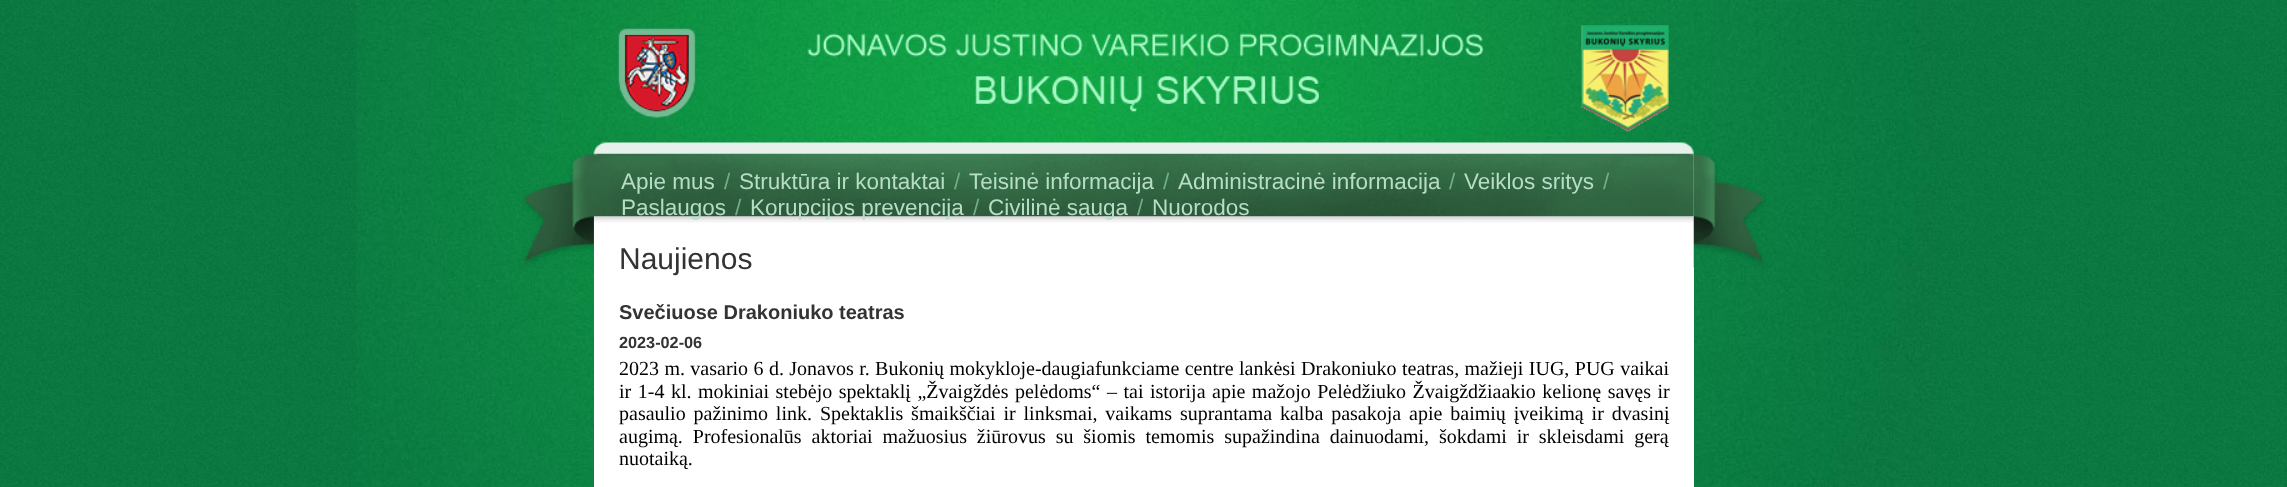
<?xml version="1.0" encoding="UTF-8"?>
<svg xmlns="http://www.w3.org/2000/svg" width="2287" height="487">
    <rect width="100%" height="100%" fill="#FFFFFF"/>
    <image x="0" y="0" width="2287" height="487" href="img_01.png"/>
    <image x="356" y="0" width="1575" height="487" href="img_02.png"/>
    <image x="519" y="153" width="75" height="116" href="img_04.png"/>
    <rect x="594" y="154" width="1100" height="333" fill="#FFFFFF"/>
    <image x="593" y="153" width="1101" height="64" href="img_05.png"/>
    <image x="594" y="216" width="1100" height="7" href="img_06.png"/>
    <image x="1693" y="153" width="76" height="115" href="img_07.png"/>
    <image x="593" y="25" width="1101" height="129" href="img_03.png"/>
    <text x="621" y="189" font-family="Liberation Sans" font-size="22.5" fill="#B7DEC5">Apie mus</text>
    <text x="724" y="189" font-family="Liberation Sans" font-size="22.5" fill="#73AF86">/</text>
    <text x="739" y="189" font-family="Liberation Sans" font-size="22.5" fill="#B7DEC5">Struktūra ir kontaktai</text>
    <text x="954" y="189" font-family="Liberation Sans" font-size="22.5" fill="#73AF86">/</text>
    <text x="969" y="189" font-family="Liberation Sans" font-size="22.5" fill="#B7DEC5">Teisinė informacija</text>
    <text x="1163" y="189" font-family="Liberation Sans" font-size="22.5" fill="#73AF86">/</text>
    <text x="1178" y="189" font-family="Liberation Sans" font-size="22.5" fill="#B7DEC5">Administracinė informacija</text>
    <text x="1449" y="189" font-family="Liberation Sans" font-size="22.5" fill="#73AF86">/</text>
    <text x="1464" y="189" font-family="Liberation Sans" font-size="22.5" fill="#B7DEC5">Veiklos sritys</text>
    <text x="1603" y="189" font-family="Liberation Sans" font-size="22.5" fill="#73AF86">/</text>
    <text x="621" y="215" font-family="Liberation Sans" font-size="22.5" fill="#B7DEC5">Paslaugos</text>
    <text x="735" y="215" font-family="Liberation Sans" font-size="22.5" fill="#73AF86">/</text>
    <text x="750" y="215" font-family="Liberation Sans" font-size="22.5" fill="#B7DEC5">Korupcijos prevencija</text>
    <text x="973" y="215" font-family="Liberation Sans" font-size="22.5" fill="#73AF86">/</text>
    <text x="988" y="215" font-family="Liberation Sans" font-size="22.5" fill="#B7DEC5">Civilinė sauga</text>
    <text x="1137" y="215" font-family="Liberation Sans" font-size="22.5" fill="#73AF86">/</text>
    <text x="1152" y="215" font-family="Liberation Sans" font-size="22.5" fill="#B7DEC5">Nuorodos</text>
    <text x="619" y="269" font-family="Liberation Sans" font-size="30" fill="#333333">Naujienos</text>
    <text x="619" y="319" font-family="Liberation Sans" font-size="20" font-weight="700" fill="#333333">Svečiuose Drakoniuko teatras</text>
    <text x="619" y="348" font-family="Liberation Sans" font-size="16.25" font-weight="700" fill="#333333">2023-02-06</text>
    <text font-family="Liberation Serif" font-size="20" fill="#000000">
        <tspan x="619" y="375" word-spacing="0.4">2023 m. vasario 6 d. Jonavos r. Bukonių mokykloje-daugiafunkciame centre lankėsi Drakoniuko teatras, mažieji IUG, PUG vaikai</tspan>
        <tspan x="619" y="398" word-spacing="1.5">ir 1-4 kl. mokiniai stebėjo spektaklį „Žvaigždės pelėdoms“ – tai istorija apie mažojo Pelėdžiuko Žvaigždžiaakio kelionę savęs ir</tspan>
        <tspan x="619" y="420" word-spacing="2.9">pasaulio pažinimo link. Spektaklis šmaikščiai ir linksmai, vaikams suprantama kalba pasakoja apie baimių įveikimą ir dvasinį</tspan>
        <tspan x="619" y="443" word-spacing="4.9">augimą. Profesionalūs aktoriai mažuosius žiūrovus su šiomis temomis supažindina dainuodami, šokdami ir skleisdami gerą</tspan>
        <tspan x="619" y="465">nuotaiką.</tspan>
    </text>
</svg>
